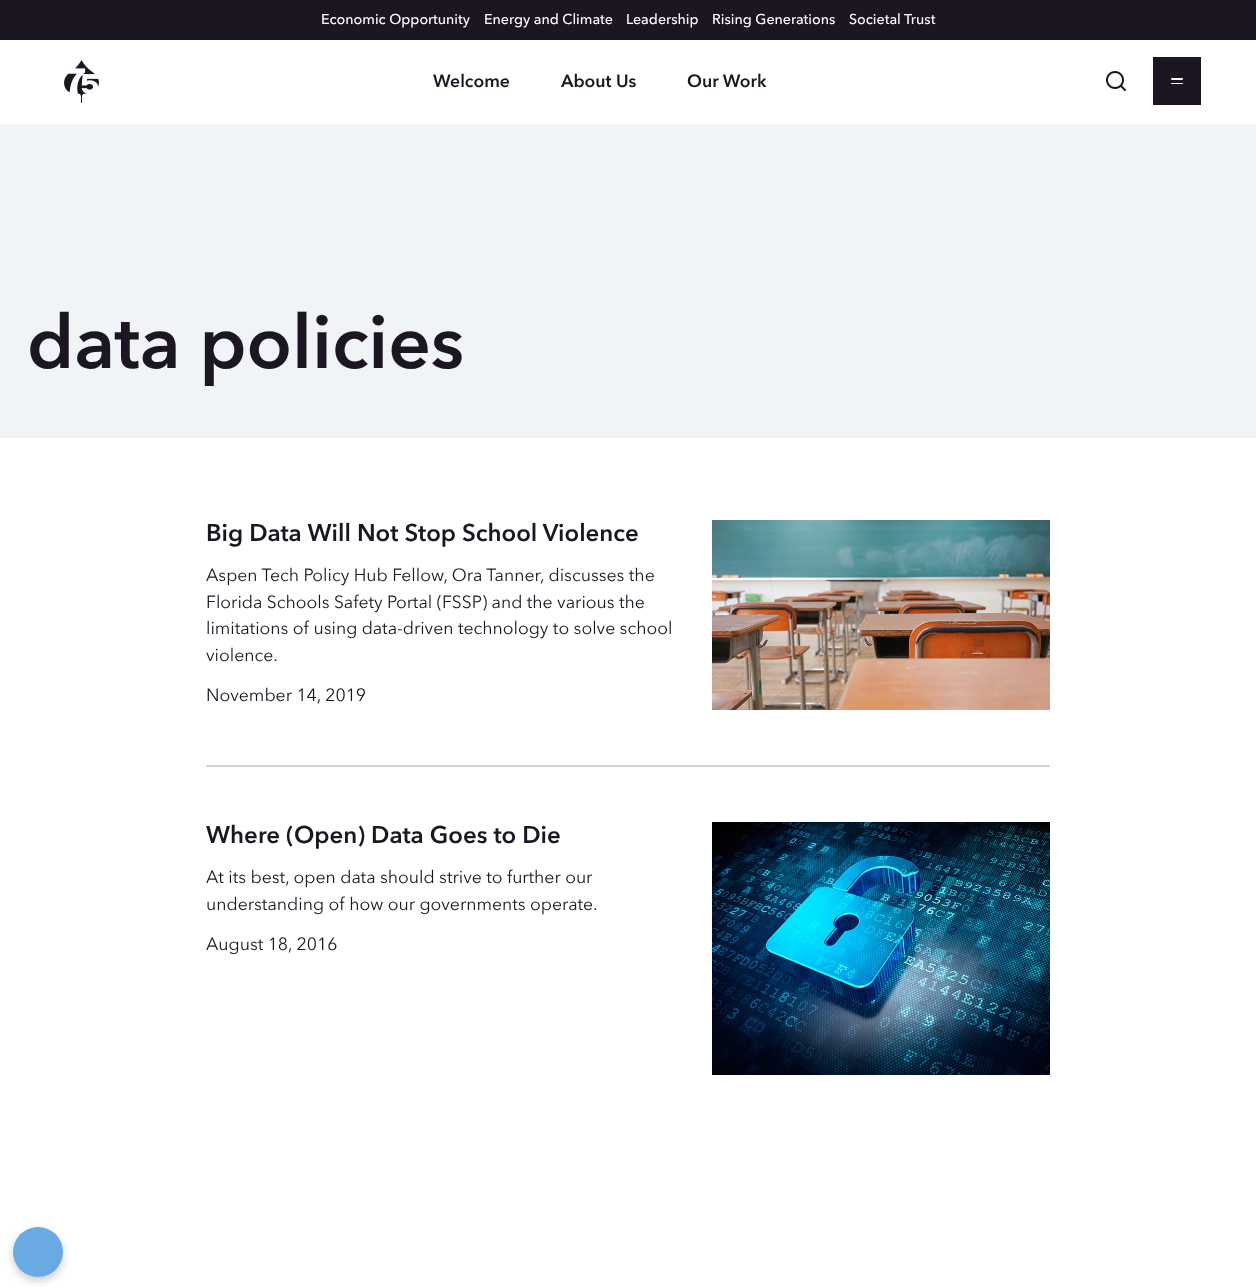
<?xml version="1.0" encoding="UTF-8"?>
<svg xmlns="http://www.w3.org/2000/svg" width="1256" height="1287">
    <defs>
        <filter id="blur1" x="-50%" y="-200%" width="200%" height="500%"><feGaussianBlur stdDeviation="4"/></filter>
    </defs>
    <rect width="100%" height="100%" fill="#FFFFFF"/>
    <rect x="0" y="0" width="1256" height="40" fill="#1C1622"/>
    <text x="321" y="24" font-family="Avenir Next" font-size="14.25" font-weight="500" fill="#FFFFFF">Economic Opportunity</text>
    <text x="484" y="24" font-family="Avenir Next" font-size="14.25" font-weight="500" fill="#FFFFFF">Energy and Climate</text>
    <text x="626" y="24" font-family="Avenir Next" font-size="14.25" font-weight="500" fill="#FFFFFF">Leadership</text>
    <text x="712" y="24" font-family="Avenir Next" font-size="14.25" font-weight="500" fill="#FFFFFF">Rising Generations</text>
    <text x="849" y="24" font-family="Avenir Next" font-size="14.25" font-weight="500" fill="#FFFFFF">Societal Trust</text>
    <image x="64" y="60" width="35" height="43" href="img_01.png"/>
    <text x="433" y="87" font-family="Avenir Next" font-size="17.6" font-weight="600" fill="#1C1622">Welcome</text>
    <text x="561" y="87" font-family="Avenir Next" font-size="17.6" font-weight="600" fill="#1C1622">About Us</text>
    <text x="687" y="87" font-family="Avenir Next" font-size="17.6" font-weight="600" fill="#1C1622">Our Work</text>
    <image x="1106" y="71" width="21" height="21" href="img_02.png"/>
    <rect x="1153" y="57" width="48" height="48" fill="#1C1622"/>
    <rect x="1171" y="78" width="12" height="2" rx="1" fill="#FFFFFF"/>
    <rect x="1171" y="83" width="12" height="1" rx="0.5" fill="#FFFFFF"/>
    <rect x="0" y="124" width="1256" height="314" fill="#F0F4F7"/>
    <text x="27" y="368" font-family="Avenir Next" font-size="74.5" font-weight="600" fill="#1C1622">data policies</text>
    <text x="206" y="541" font-family="Avenir Next" font-size="24" font-weight="600" fill="#1C1622">Big Data Will Not Stop School Violence</text>
    <text font-family="Avenir Next" font-size="17.6" fill="#1C1622">
        <tspan x="206" y="581">Aspen Tech Policy Hub Fellow, Ora Tanner, discusses the</tspan>
        <tspan x="206" y="608">Florida Schools Safety Portal (FSSP) and the various the</tspan>
        <tspan x="206" y="634">limitations of using data-driven technology to solve school</tspan>
        <tspan x="206" y="661">violence.</tspan>
    </text>
    <text x="206" y="701" font-family="Avenir Next" font-size="17.6" fill="#1C1622">November 14, 2019</text>
    <image x="712" y="520" width="338" height="190" href="img_03.png"/>
    <rect x="206" y="765" width="844" height="2" fill="#D2D0D3"/>
    <text x="206" y="843" font-family="Avenir Next" font-size="24" font-weight="600" fill="#1C1622">Where (Open) Data Goes to Die</text>
    <text font-family="Avenir Next" font-size="17.6" fill="#1C1622">
        <tspan x="206" y="883">At its best, open data should strive to further our</tspan>
        <tspan x="206" y="910">understanding of how our governments operate.</tspan>
    </text>
    <text x="206" y="950" font-family="Avenir Next" font-size="17.6" fill="#1C1622">August 18, 2016</text>
    <image x="712" y="822" width="338" height="253" href="img_04.png"/>
    <rect x="13" y="1231" width="50" height="50" rx="25" fill="#000000" fill-opacity="0.2" filter="url(#blur1)"/>
    <circle cx="38" cy="1252" r="25" fill="#6AAAE4"/>
</svg>
